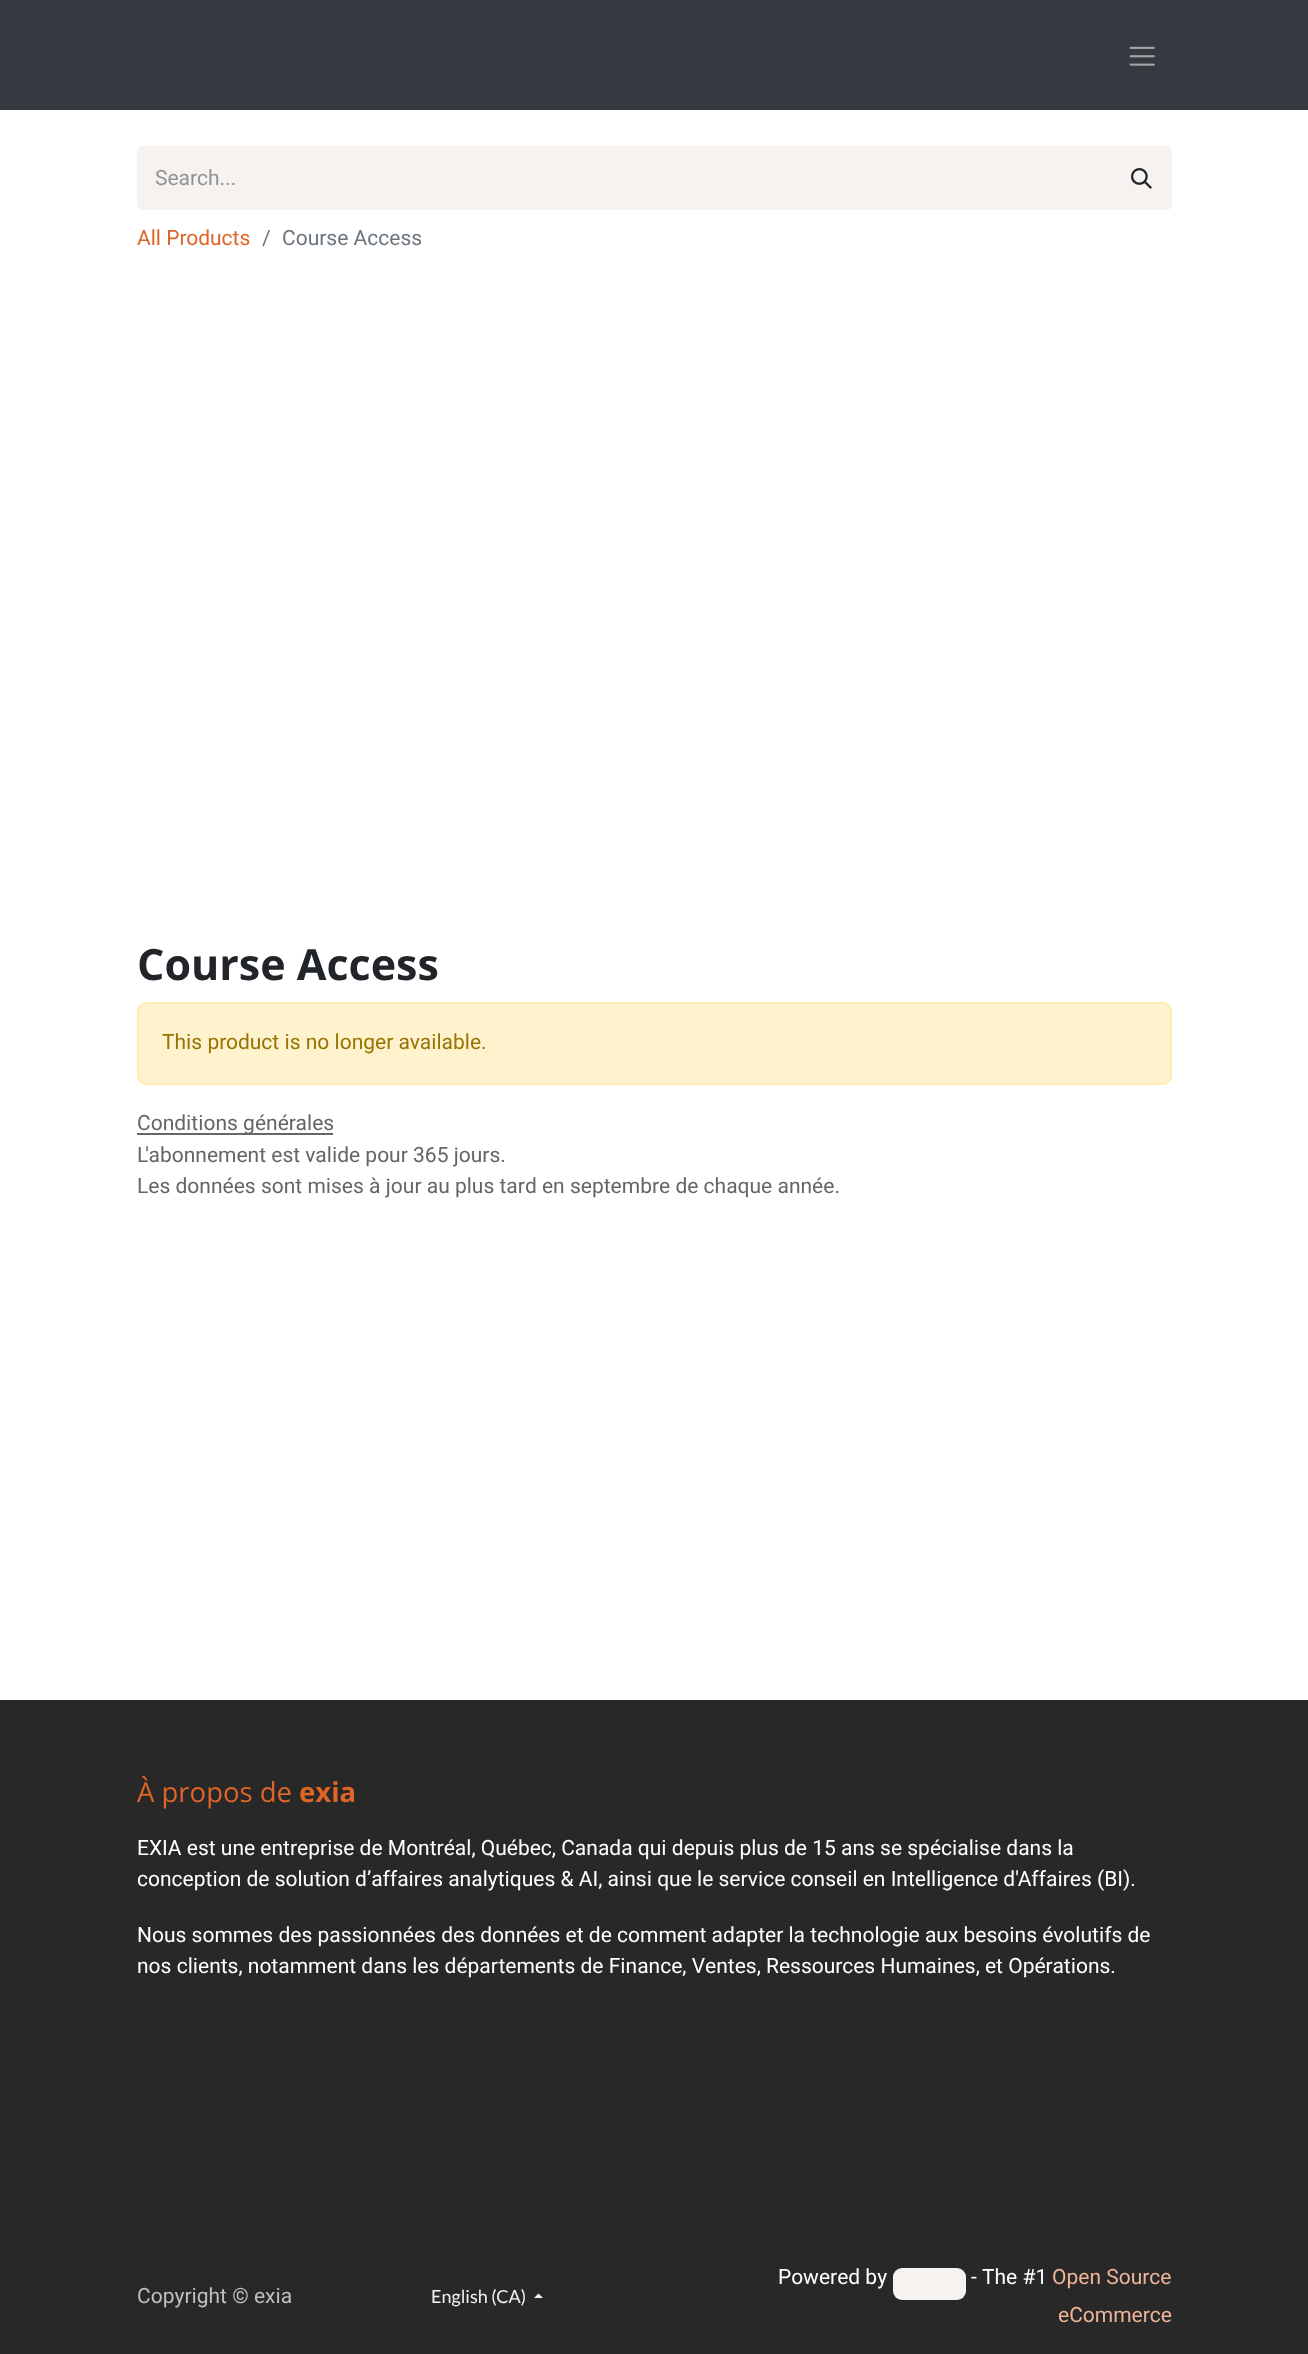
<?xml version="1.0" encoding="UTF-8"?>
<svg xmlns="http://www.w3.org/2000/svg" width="1308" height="2354">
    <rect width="100%" height="100%" fill="#FFFFFF"/>
    <rect x="0" y="0" width="1308" height="110" fill="#343A40"/>
    <image x="1129" y="46" width="26" height="20" href="img_01.png"/>
    <path d="M 143 146 H 1113 V 210 H 143 C 139.5 210 137 207.5 137 204 V 152 C 137 148.5 139.5 146 143 146 Z" fill="#F5F2F0"/>
    <text x="155" y="185" font-family="Heebo" font-size="21" fill="#909294">Search...</text>
    <path d="M 1113 147 H 1166 C 1169 147 1171 149 1171 152 V 204 C 1171 207 1169 209 1166 209 H 1113 Z" fill="#F5F2F0" stroke="#F5F2F0" stroke-width="2"/>
    <image x="1131" y="168" width="21" height="21" href="img_02.png"/>
    <text x="137" y="245" font-family="Heebo" font-size="21" fill="#DE6528">All Products</text>
    <text x="262" y="245" font-family="Heebo" font-size="21" fill="#6C757D">/</text>
    <text x="282" y="245" font-family="Heebo" font-size="21" fill="#6C757D">Course Access</text>
    <text x="137" y="980" font-family="Open Sans" font-size="43" font-weight="700" fill="#212529">Course Access</text>
    <rect x="138" y="1003" width="1033" height="81" rx="8" fill="#FFF3CD" stroke="#FFECB5" stroke-width="2"/>
    <text x="162" y="1049" font-family="Heebo" font-size="21" fill="#997404">This product is no longer available.</text>
    <rect x="137" y="1133" width="196" height="2" fill="#646669"/>
    <text font-family="Heebo" font-size="21" fill="#636669">
        <tspan x="137" y="1130">Conditions générales</tspan>
        <tspan x="137" y="1162">L'abonnement est valide pour 365 jours.</tspan>
        <tspan x="137" y="1193">Les données sont mises à jour au plus tard en septembre de chaque année.</tspan>
    </text>
    <rect x="0" y="1700" width="1308" height="654" fill="#282828"/>
    <text x="137" y="1802" font-family="Open Sans" font-size="27.5" fill="#DE6528">À propos de</text>
    <text x="299" y="1802" font-family="Open Sans" font-size="27.5" font-weight="700" fill="#DE6528">exia</text>
    <text font-family="Heebo" font-size="21" fill="#FFFFFF">
        <tspan x="137" y="1855">EXIA est une entreprise de Montréal, Québec, Canada qui depuis plus de 15 ans se spécialise dans la</tspan>
        <tspan x="137" y="1886">conception de solution d’affaires analytiques &amp; AI, ainsi que le service conseil en Intelligence d'Affaires (BI).</tspan>
    </text>
    <text font-family="Heebo" font-size="21" fill="#FFFFFF">
        <tspan x="137" y="1942">Nous sommes des passionnées des données et de comment adapter la technologie aux besoins évolutifs de</tspan>
        <tspan x="137" y="1973">nos clients, notamment dans les départements de Finance, Ventes, Ressources Humaines, et Opérations.</tspan>
    </text>
    <text x="137" y="2303" font-family="Heebo" font-size="21" fill="#BFBFBF">Copyright © exia</text>
    <text x="431" y="2303" font-family="Lato" font-size="18" fill="#F5F2F0">English (CA)</text>
    <path d="M 543 2298 H 534 L 538.5 2293.5 Z" fill="#F5F2F0"/>
    <text x="778" y="2284" font-family="Heebo" font-size="21" fill="#FFFFFF">Powered by</text>
    <rect x="893" y="2268" width="73" height="32" rx="9" fill="#F5F2F0"/>
    <text x="971" y="2284" font-family="Heebo" font-size="21" fill="#FFFFFF">-</text>
    <text x="982" y="2284" font-family="Heebo" font-size="21" fill="#FFFFFF">The #1</text>
    <text x="1052" y="2284" font-family="Heebo" font-size="21" fill="#EFB497">Open Source</text>
    <text x="1058" y="2322" font-family="Heebo" font-size="21" fill="#EFB497">eCommerce</text>
</svg>
